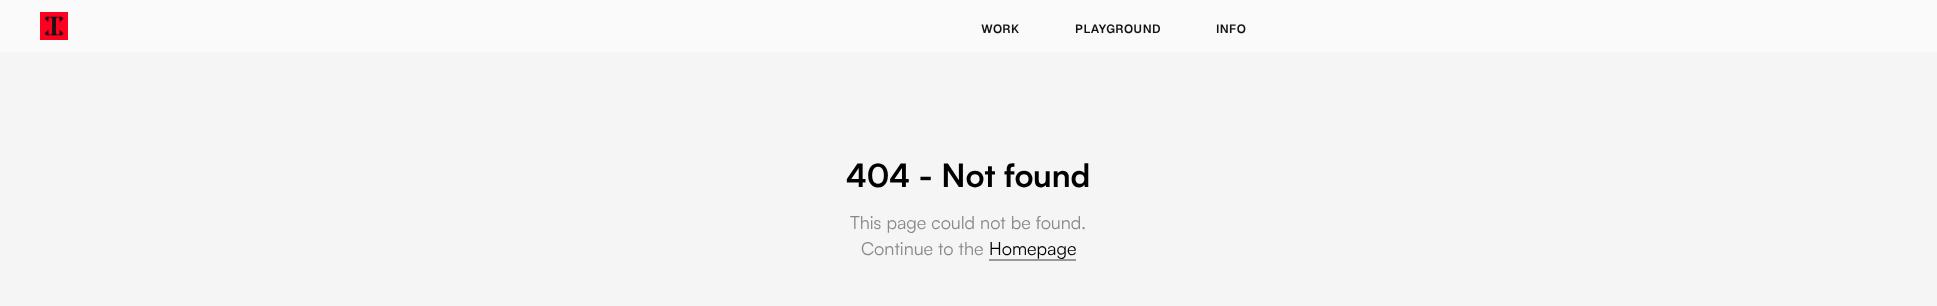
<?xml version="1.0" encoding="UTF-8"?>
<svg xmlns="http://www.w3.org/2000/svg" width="1937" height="306">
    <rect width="100%" height="100%" fill="#F5F5F5"/>
    <rect x="0" y="0" width="1937" height="52" fill="#FAFAFA"/>
    <image x="40" y="12" width="28" height="28" href="img_01.png"/>
    <text x="981" y="33" font-family="Geist" font-size="12" font-weight="600" letter-spacing="0.5" fill="#161210">WORK</text>
    <text x="1075" y="33" font-family="Geist" font-size="12" font-weight="600" letter-spacing="0.5" fill="#161210">PLAYGROUND</text>
    <text x="1216" y="33" font-family="Geist" font-size="12" font-weight="600" letter-spacing="0.5" fill="#161210">INFO</text>
    <text x="846" y="187" font-family="Satoshi" font-size="32" font-weight="700" fill="#000000">404 - Not found</text>
    <text x="850" y="229" font-family="Satoshi" font-size="18" fill="#888888">This page could not be found.</text>
    <text x="861" y="255" font-family="Satoshi" font-size="18" fill="#888888">Continue to the</text>
    <text x="989" y="255" font-family="Satoshi" font-size="18" fill="#000000">Homepage</text>
    <rect x="989" y="259" width="87" height="2" fill="#999999"/>
</svg>
